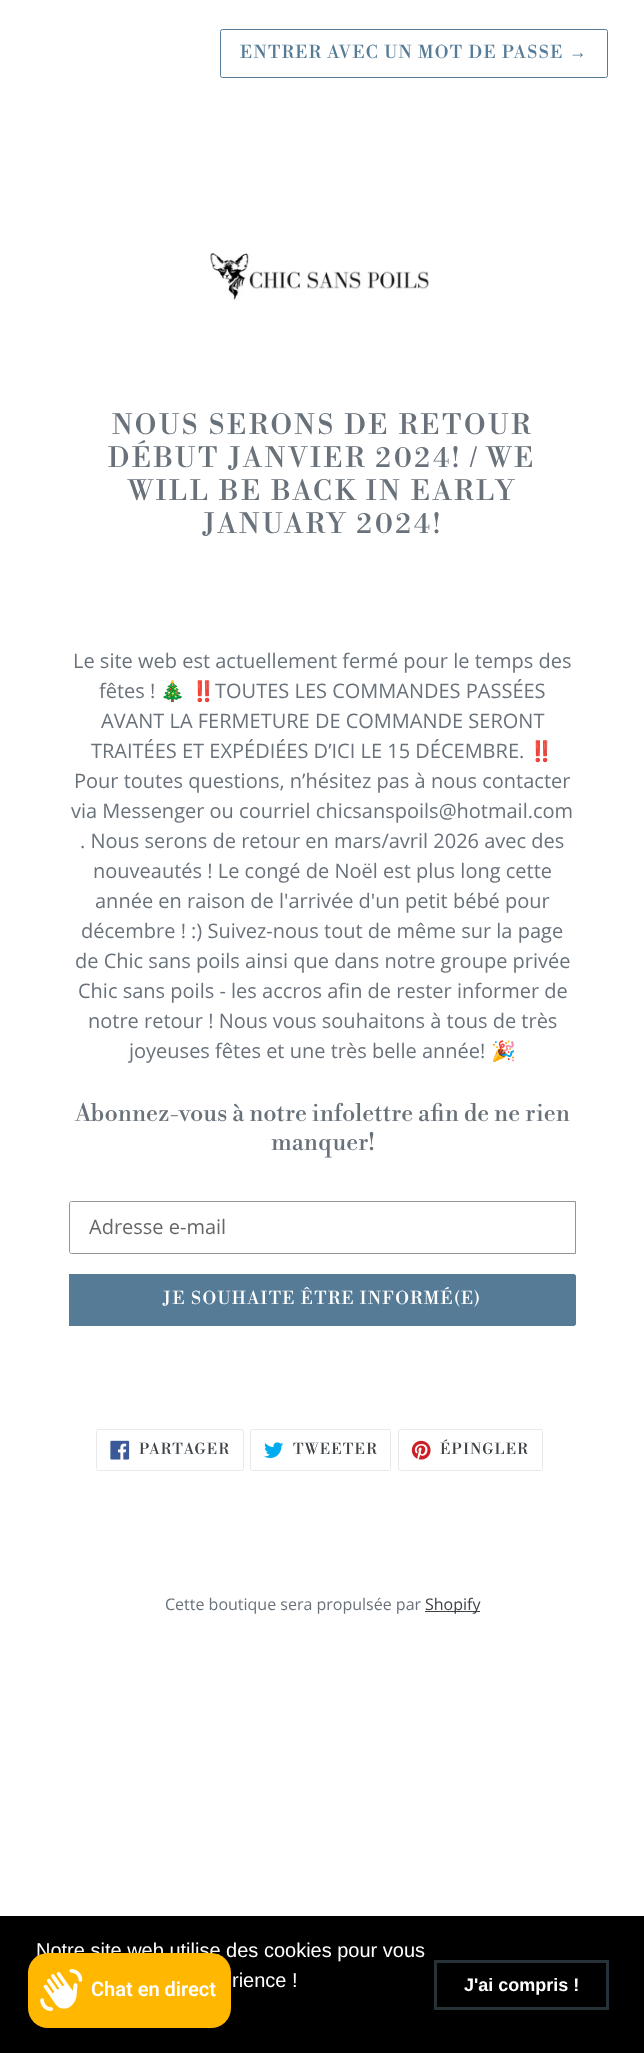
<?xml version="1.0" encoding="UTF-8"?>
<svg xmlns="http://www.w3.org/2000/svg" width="644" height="2053">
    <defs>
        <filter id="blur1" x="-50%" y="-200%" width="200%" height="500%"><feGaussianBlur stdDeviation="3"/></filter>
    </defs>
    <rect width="100%" height="100%" fill="#FFFFFF"/>
    <rect x="220.5" y="29.5" width="387" height="48" rx="2" fill="none" stroke="#557B97"/>
    <text x="240" y="58" font-family="Libre Bodoni" font-size="17.5" letter-spacing="1.4" fill="#557B97">ENTRER AVEC UN MOT DE PASSE</text>
    <text x="569" y="58" font-family="Liberation Serif" font-size="17.5" letter-spacing="1.4" fill="#557B97">→</text>
    <image x="210" y="253" width="219" height="47" href="img_01.png"/>
    <text x="112" y="434" font-family="Libre Bodoni" font-size="27.5" letter-spacing="2.75" fill="#69727B">NOUS SERONS DE RETOUR</text>
    <text x="108" y="467" font-family="Libre Bodoni" font-size="27.5" letter-spacing="2.75" fill="#69727B">DÉBUT JANVIER 2024! / WE</text>
    <text x="128" y="500" font-family="Libre Bodoni" font-size="27.5" letter-spacing="2.75" fill="#69727B">WILL BE BACK IN EARLY</text>
    <text x="203" y="533" font-family="Libre Bodoni" font-size="27.5" letter-spacing="2.75" fill="#69727B">JANUARY 2024!</text>
    <text x="73" y="668" font-family="Open Sans" font-size="20" fill="#69727B">Le site web est actuellement fermé pour le temps des</text>
    <text x="99" y="698" font-family="Open Sans" font-size="20" fill="#69727B">fêtes !</text>
    <text x="160" y="698" font-family="Noto Color Emoji" font-size="20" fill="#69727B">🎄</text>
    <text x="191" y="698" font-family="Noto Color Emoji" font-size="20" fill="#69727B">‼️</text>
    <text x="215" y="698" font-family="Open Sans" font-size="20" fill="#69727B">TOUTES LES COMMANDES PASSÉES</text>
    <text x="101" y="728" font-family="Open Sans" font-size="20" fill="#69727B">AVANT LA FERMETURE DE COMMANDE SERONT</text>
    <text x="91" y="758" font-family="Open Sans" font-size="20" fill="#69727B">TRAITÉES ET EXPÉDIÉES D’ICI LE 15 DÉCEMBRE.</text>
    <text x="529" y="758" font-family="Noto Color Emoji" font-size="20" fill="#69727B">‼️</text>
    <text x="74" y="788" font-family="Open Sans" font-size="20" fill="#69727B">Pour toutes questions, n’hésitez pas à nous contacter</text>
    <text x="71" y="818" font-family="Open Sans" font-size="20" fill="#69727B">via Messenger ou courriel chicsanspoils@hotmail.com</text>
    <text x="80" y="848" font-family="Open Sans" font-size="20" fill="#69727B">. Nous serons de retour en mars/avril 2026 avec des</text>
    <text x="93" y="878" font-family="Open Sans" font-size="20" fill="#69727B">nouveautés ! Le congé de Noël est plus long cette</text>
    <text x="95" y="908" font-family="Open Sans" font-size="20" fill="#69727B">année en raison de l'arrivée d'un petit bébé pour</text>
    <text x="81" y="938" font-family="Open Sans" font-size="20" fill="#69727B">décembre ! :) Suivez-nous tout de même sur la page</text>
    <text x="75" y="968" font-family="Open Sans" font-size="20" fill="#69727B">de Chic sans poils ainsi que dans notre groupe privée</text>
    <text x="78" y="998" font-family="Open Sans" font-size="20" fill="#69727B">Chic sans poils - les accros afin de rester informer de</text>
    <text x="88" y="1028" font-family="Open Sans" font-size="20" fill="#69727B">notre retour ! Nous vous souhaitons à tous de très</text>
    <text x="129" y="1058" font-family="Open Sans" font-size="20" fill="#69727B">joyeuses fêtes et une très belle année!</text>
    <text x="491" y="1058" font-family="Noto Color Emoji" font-size="20" fill="#69727B">🎉</text>
    <text x="75" y="1121" font-family="Libre Bodoni" font-size="23.75" fill="#69727B">Abonnez-vous à notre infolettre afin de ne rien</text>
    <text x="271" y="1150" font-family="Libre Bodoni" font-size="23.75" fill="#69727B">manquer!</text>
    <path d="M 71.5 1201.5 H 575.5 V 1253.5 H 71.5 C 70.5 1253.5 69.5 1252.5 69.5 1251.5 V 1203.5 C 69.5 1202.5 70.5 1201.5 71.5 1201.5 Z" fill="none" stroke="#949494"/>
    <text x="89" y="1234" font-family="Open Sans" font-size="20" fill="#666666">Adresse e-mail</text>
    <path d="M 69 1274 H 573.5 C 575 1274 576 1275 576 1276.5 V 1323.5 C 576 1325 575 1326 573.5 1326 H 69 Z" fill="#557B97"/>
    <text x="163" y="1304" font-family="Libre Bodoni" font-size="17.5" letter-spacing="1.4" fill="#FFFFFF">JE SOUHAITE ÊTRE INFORMÉ(E)</text>
    <rect x="96.5" y="1429.5" width="147" height="41" rx="2" fill="none" stroke="#E8E9EB"/>
    <image x="110" y="1440" width="20" height="20" href="img_02.png"/>
    <text x="139" y="1454" font-family="Libre Bodoni" font-size="15" letter-spacing="1.25" fill="#3D4246">PARTAGER</text>
    <rect x="250.5" y="1429.5" width="140" height="41" rx="2" fill="none" stroke="#E8E9EB"/>
    <image x="264" y="1442" width="20" height="16" href="img_03.png"/>
    <text x="293" y="1454" font-family="Libre Bodoni" font-size="15" letter-spacing="1.25" fill="#3D4246">TWEETER</text>
    <rect x="398.5" y="1429.5" width="144" height="41" rx="2" fill="none" stroke="#E8E9EB"/>
    <image x="411" y="1440" width="20" height="20" href="img_04.png"/>
    <text x="440" y="1454" font-family="Libre Bodoni" font-size="15" letter-spacing="1.25" fill="#3D4246">ÉPINGLER</text>
    <text x="165" y="1610" font-family="Open Sans" font-size="16" fill="#69727B">Cette boutique sera propulsée par</text>
    <rect x="425" y="1611" width="55" height="1" fill="#3D4246"/>
    <text x="425" y="1610" font-family="Open Sans" font-size="16" fill="#3D4246">Shopify</text>
    <rect x="0" y="1916" width="644" height="137" fill="#000000"/>
    <text x="36" y="1957" font-family="Liberation Sans" font-size="20" fill="#FFFFFF">Notre site web utilise des cookies pour vous</text>
    <text x="232" y="1987" font-family="Liberation Sans" font-size="20" fill="#FFFFFF">rience !</text>
    <rect x="435.5" y="1961.5" width="172" height="47" fill="none" stroke="#263238" stroke-width="3"/>
    <text x="464" y="1991" font-family="Liberation Sans" font-size="18" font-weight="700" fill="#FFFFFF">J'ai compris !</text>
    <rect x="28" y="1953" width="203" height="75" rx="20" fill="#000000" fill-opacity="0.15" filter="url(#blur1)"/>
    <rect x="28" y="1953" width="203" height="75" rx="20" fill="#FFB700"/>
    <image x="40" y="1969" width="43" height="42" href="img_05.png"/>
    <text x="91" y="1996" font-family="Roboto" font-size="20" font-weight="600" fill="#FFFFFF">Chat en direct</text>
</svg>
